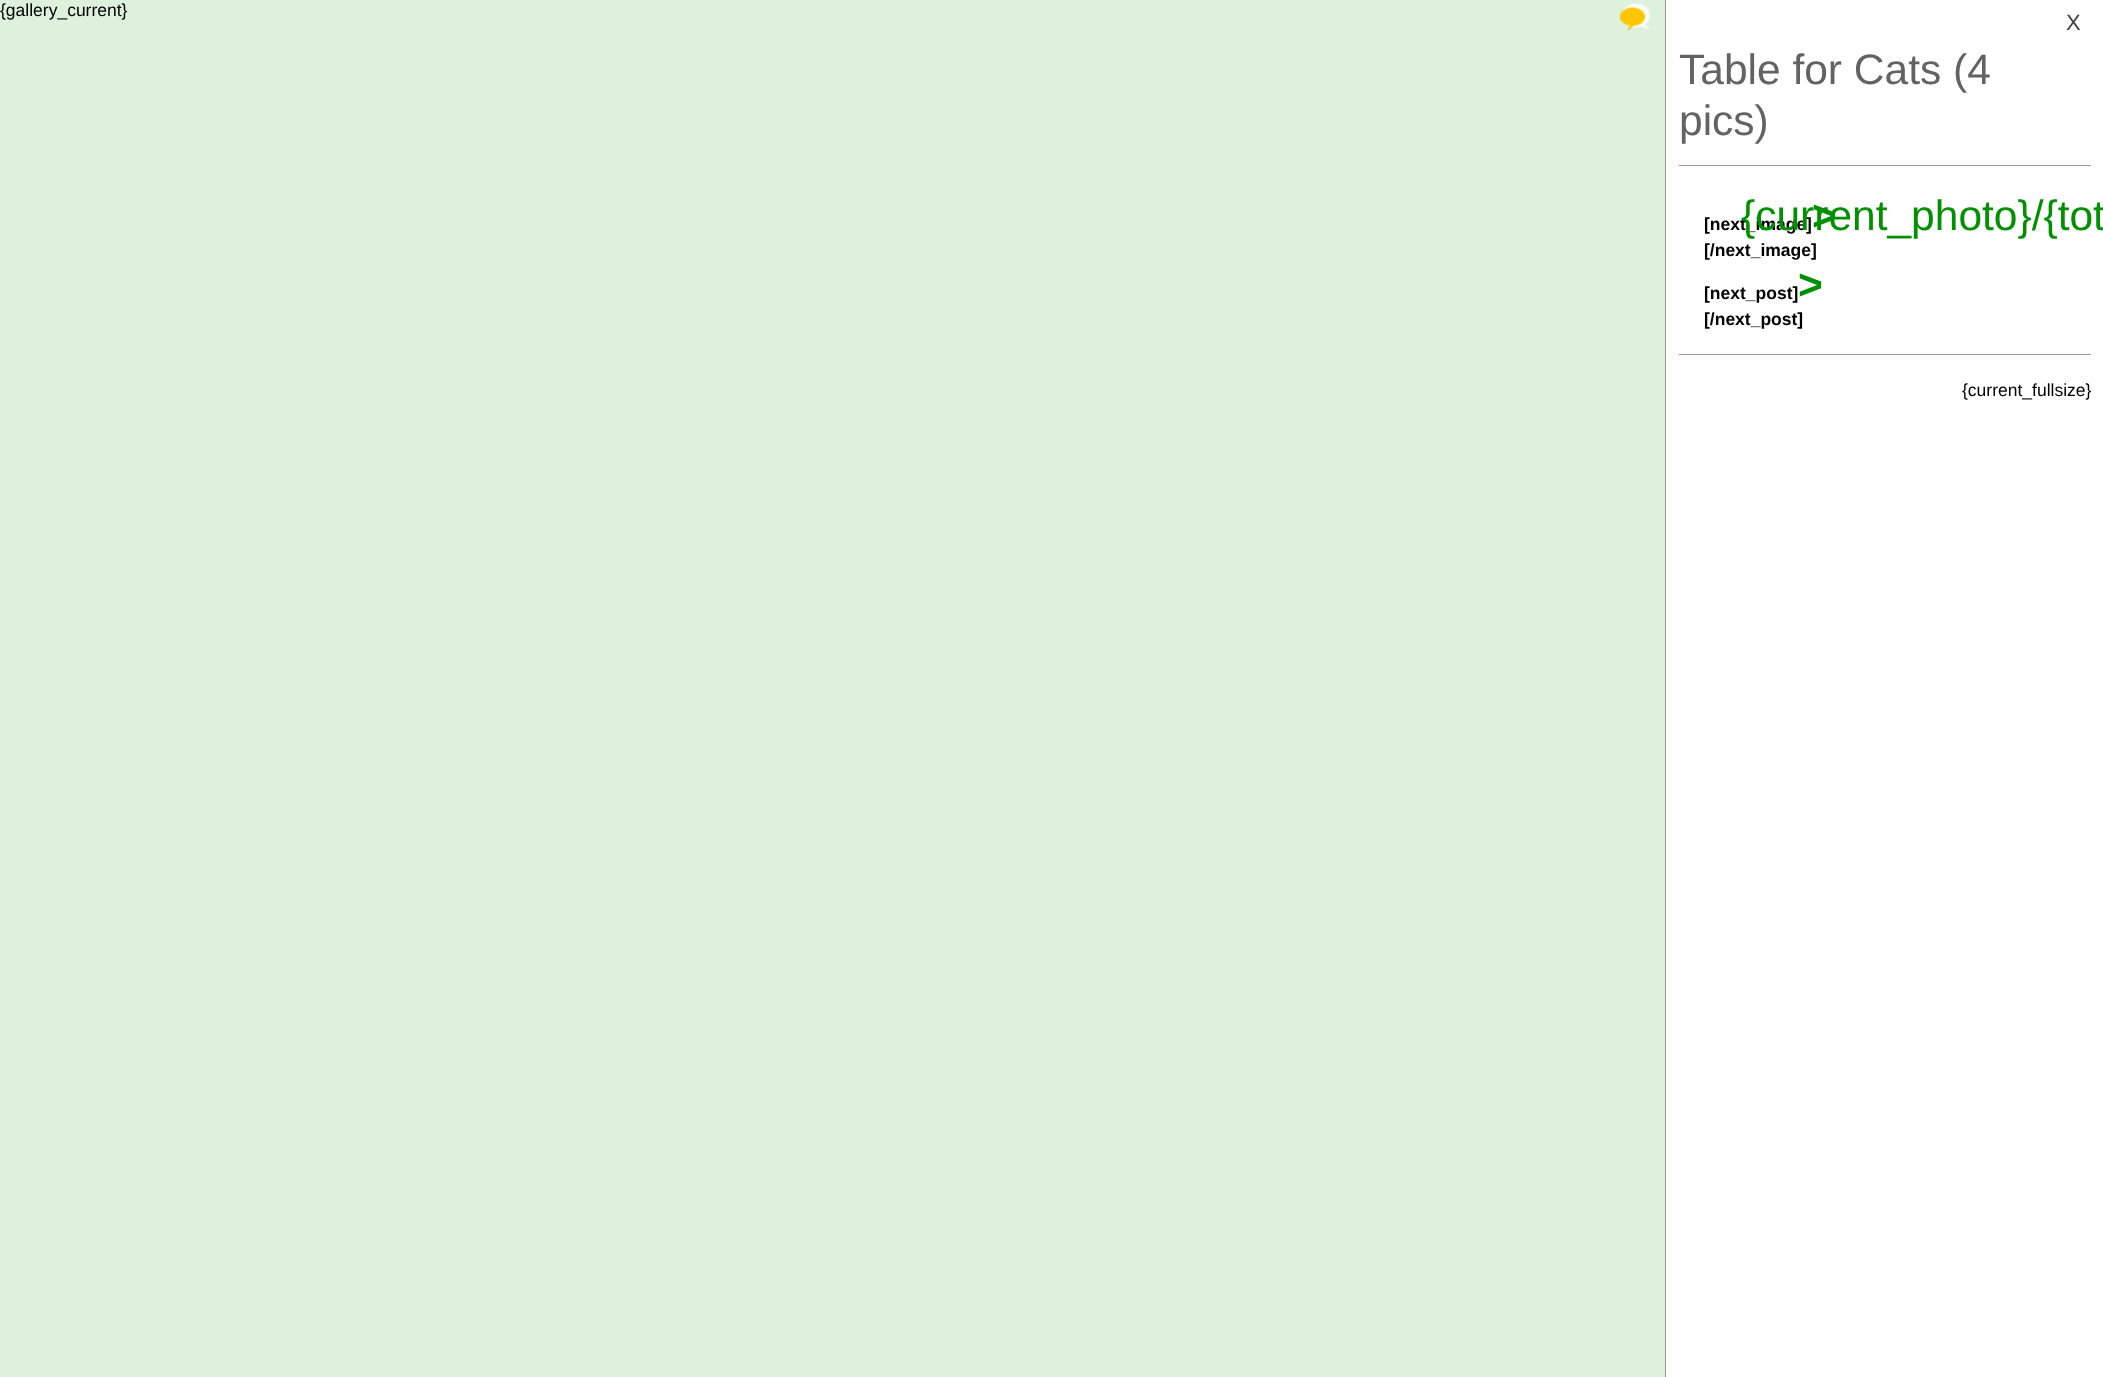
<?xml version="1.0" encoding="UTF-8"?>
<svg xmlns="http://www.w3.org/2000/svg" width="2103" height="1377">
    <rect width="100%" height="100%" fill="#DDF1DD"/>
    <text x="0" y="16" font-family="Liberation Sans" font-size="17.5" fill="#000000">{gallery_current}</text>
    <image x="1620" y="3" width="30" height="28" href="img_01.png"/>
    <rect x="1666" y="0" width="437" height="1377" fill="#FFFFFF"/>
    <rect x="1665" y="0" width="1" height="1377" fill="#999999"/>
    <text x="2066" y="30" font-family="Liberation Sans" font-size="22" fill="#444444">X</text>
    <text font-family="Liberation Sans" font-size="42.5" fill="#636363">
        <tspan x="1679" y="84">Table for Cats (4</tspan>
        <tspan x="1679" y="135">pics)</tspan>
    </text>
    <rect x="1679" y="165" width="412" height="1" fill="#999999"/>
    <rect x="1679" y="354" width="412" height="1" fill="#999999"/>
    <text x="1704" y="230" font-family="Liberation Sans" font-size="17.5" font-weight="700" fill="#000000">[next_image]</text>
    <text x="1812" y="230" font-family="Liberation Sans" font-size="42.5" font-weight="700" fill="#009000">&gt;</text>
    <text x="1741" y="230" font-family="Liberation Sans" font-size="42.5" fill="#009000">{current_photo}/{tot</text>
    <text x="1704" y="256" font-family="Liberation Sans" font-size="17.5" font-weight="700" fill="#000000">[/next_image]</text>
    <text x="1704" y="299" font-family="Liberation Sans" font-size="17.5" font-weight="700" fill="#000000">[next_post]</text>
    <text x="1798" y="299" font-family="Liberation Sans" font-size="42.5" font-weight="700" fill="#009000">&gt;</text>
    <text x="1704" y="325" font-family="Liberation Sans" font-size="17.5" font-weight="700" fill="#000000">[/next_post]</text>
    <text x="1962" y="396" font-family="Liberation Sans" font-size="17.5" fill="#000000">{current_fullsize}</text>
</svg>
